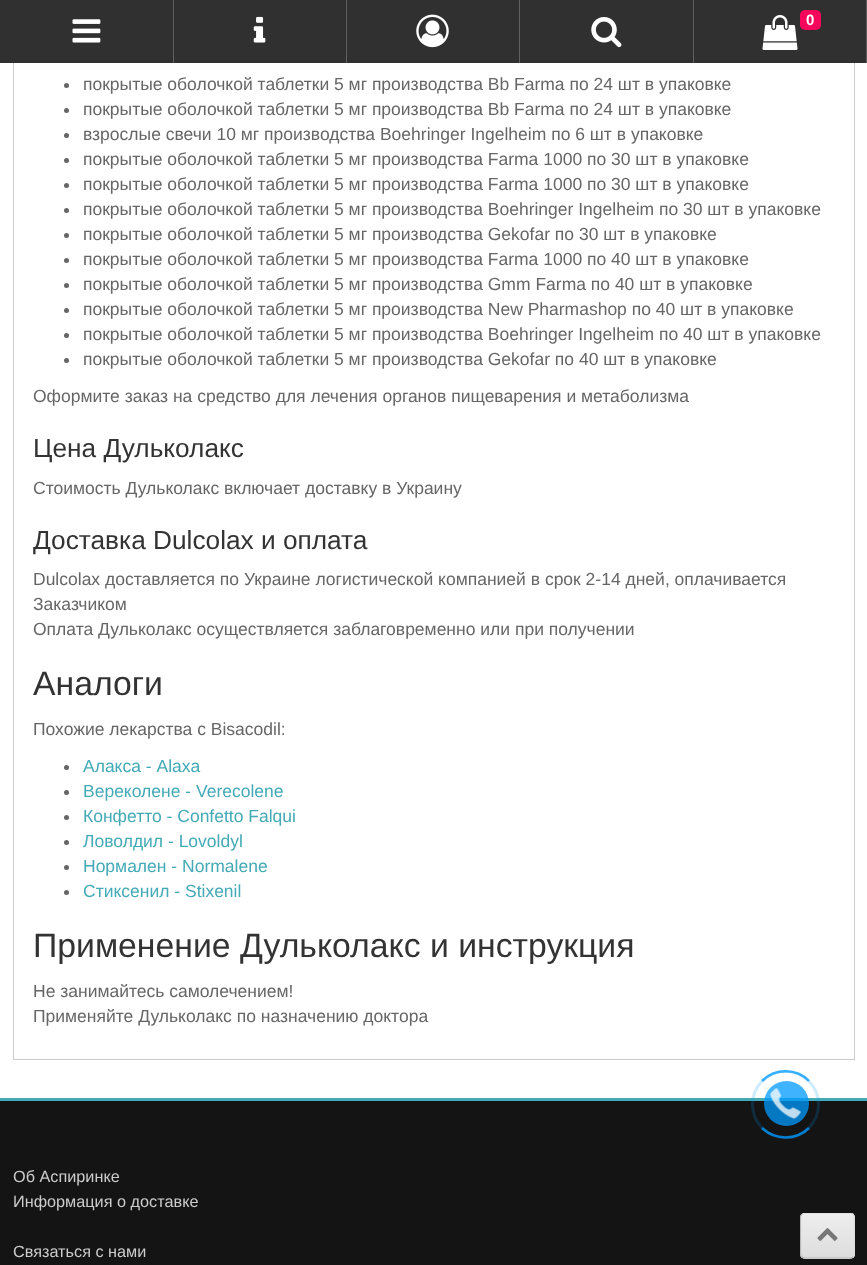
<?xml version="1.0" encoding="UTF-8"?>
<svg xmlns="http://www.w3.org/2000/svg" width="867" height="1265">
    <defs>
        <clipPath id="clip1"><rect x="800" y="1213" width="55" height="46" rx="5"/></clipPath>
        <linearGradient id="g1" gradientUnits="userSpaceOnUse" x1="828" y1="1214" x2="828" y2="1258"><stop offset="0" stop-color="#EEEEEE"/><stop offset="1" stop-color="#DDDDDD"/></linearGradient>
        <clipPath id="clip2"><rect x="800" y="1213" width="55" height="46"/></clipPath>
    </defs>
    <rect width="100%" height="100%" fill="#FFFFFF"/>
    <rect x="0" y="0" width="866" height="63" fill="#303030"/>
    <rect x="173" y="0" width="1" height="63" fill="#5F5F5F"/>
    <image x="72" y="19" width="29" height="24" href="img_01.png"/>
    <rect x="346" y="0" width="1" height="63" fill="#5F5F5F"/>
    <image x="253" y="16" width="13" height="27" href="img_02.png"/>
    <rect x="519" y="0" width="1" height="63" fill="#5F5F5F"/>
    <image x="416" y="14" width="33" height="34" href="img_03.png"/>
    <rect x="693" y="0" width="1" height="63" fill="#5F5F5F"/>
    <image x="591" y="17" width="31" height="31" href="img_04.png"/>
    <rect x="866" y="0" width="1" height="63" fill="#5F5F5F"/>
    <image x="762" y="15" width="36" height="35" href="img_05.png"/>
    <rect x="800" y="10" width="21" height="20" rx="5" fill="#F7075B"/>
    <text x="806" y="25" font-family="Liberation Sans" font-size="15" font-weight="700" fill="#FFFFFF">0</text>
    <rect x="854" y="63" width="1" height="997" fill="#CCCCCC"/>
    <rect x="13" y="1059" width="842" height="1" fill="#CCCCCC"/>
    <rect x="13" y="63" width="1" height="997" fill="#CCCCCC"/>
    <circle cx="66.5" cy="85.5" r="2.5" fill="#666666"/>
    <text x="83" y="90" font-family="Liberation Sans" font-size="17.5" fill="#666666">покрытые оболочкой таблетки 5 мг производства Bb Farma по 24 шт в упаковке</text>
    <circle cx="66.5" cy="110.5" r="2.5" fill="#666666"/>
    <text x="83" y="115" font-family="Liberation Sans" font-size="17.5" fill="#666666">покрытые оболочкой таблетки 5 мг производства Bb Farma по 24 шт в упаковке</text>
    <circle cx="66.5" cy="135.5" r="2.5" fill="#666666"/>
    <text x="83" y="140" font-family="Liberation Sans" font-size="17.5" fill="#666666">взрослые свечи 10 мг производства Boehringer Ingelheim по 6 шт в упаковке</text>
    <circle cx="66.5" cy="160.5" r="2.5" fill="#666666"/>
    <text x="83" y="165" font-family="Liberation Sans" font-size="17.5" fill="#666666">покрытые оболочкой таблетки 5 мг производства Farma 1000 по 30 шт в упаковке</text>
    <circle cx="66.5" cy="185.5" r="2.5" fill="#666666"/>
    <text x="83" y="190" font-family="Liberation Sans" font-size="17.5" fill="#666666">покрытые оболочкой таблетки 5 мг производства Farma 1000 по 30 шт в упаковке</text>
    <circle cx="66.5" cy="210.5" r="2.5" fill="#666666"/>
    <text x="83" y="215" font-family="Liberation Sans" font-size="17.5" fill="#666666">покрытые оболочкой таблетки 5 мг производства Boehringer Ingelheim по 30 шт в упаковке</text>
    <circle cx="66.5" cy="235.5" r="2.5" fill="#666666"/>
    <text x="83" y="240" font-family="Liberation Sans" font-size="17.5" fill="#666666">покрытые оболочкой таблетки 5 мг производства Gekofar по 30 шт в упаковке</text>
    <circle cx="66.5" cy="260.5" r="2.5" fill="#666666"/>
    <text x="83" y="265" font-family="Liberation Sans" font-size="17.5" fill="#666666">покрытые оболочкой таблетки 5 мг производства Farma 1000 по 40 шт в упаковке</text>
    <circle cx="66.5" cy="285.5" r="2.5" fill="#666666"/>
    <text x="83" y="290" font-family="Liberation Sans" font-size="17.5" fill="#666666">покрытые оболочкой таблетки 5 мг производства Gmm Farma по 40 шт в упаковке</text>
    <circle cx="66.5" cy="310.5" r="2.5" fill="#666666"/>
    <text x="83" y="315" font-family="Liberation Sans" font-size="17.5" fill="#666666">покрытые оболочкой таблетки 5 мг производства New Pharmashop по 40 шт в упаковке</text>
    <circle cx="66.5" cy="335.5" r="2.5" fill="#666666"/>
    <text x="83" y="340" font-family="Liberation Sans" font-size="17.5" fill="#666666">покрытые оболочкой таблетки 5 мг производства Boehringer Ingelheim по 40 шт в упаковке</text>
    <circle cx="66.5" cy="360.5" r="2.5" fill="#666666"/>
    <text x="83" y="365" font-family="Liberation Sans" font-size="17.5" fill="#666666">покрытые оболочкой таблетки 5 мг производства Gekofar по 40 шт в упаковке</text>
    <text x="33" y="402" font-family="Liberation Sans" font-size="17.5" fill="#666666">Оформите заказ на средство для лечения органов пищеварения и метаболизма</text>
    <text x="33" y="457" font-family="Liberation Sans" font-size="26.25" fill="#333333">Цена Дульколакс</text>
    <text x="33" y="494" font-family="Liberation Sans" font-size="17.5" fill="#666666">Стоимость Дульколакс включает доставку в Украину</text>
    <text x="33" y="549" font-family="Liberation Sans" font-size="26.25" fill="#333333">Доставка Dulcolax и оплата</text>
    <text font-family="Liberation Sans" font-size="17.5" fill="#666666">
        <tspan x="33" y="585">Dulcolax доставляется по Украине логистической компанией в срок 2-14 дней, оплачивается</tspan>
        <tspan x="33" y="610">Заказчиком</tspan>
        <tspan x="33" y="635">Оплата Дульколакс осуществляется заблаговременно или при получении</tspan>
    </text>
    <text x="33" y="695" font-family="Liberation Sans" font-size="33.75" fill="#333333">Аналоги</text>
    <text x="33" y="735" font-family="Liberation Sans" font-size="17.5" fill="#666666">Похожие лекарства с Bisacodil:</text>
    <circle cx="66.5" cy="767.5" r="2.5" fill="#666666"/>
    <text x="83" y="772" font-family="Liberation Sans" font-size="17.5" fill="#43AAB6">Алакса - Alaxa</text>
    <circle cx="66.5" cy="792.5" r="2.5" fill="#666666"/>
    <text x="83" y="797" font-family="Liberation Sans" font-size="17.5" fill="#43AAB6">Вереколене - Verecolene</text>
    <circle cx="66.5" cy="817.5" r="2.5" fill="#666666"/>
    <text x="83" y="822" font-family="Liberation Sans" font-size="17.5" fill="#43AAB6">Конфетто - Confetto Falqui</text>
    <circle cx="66.5" cy="842.5" r="2.5" fill="#666666"/>
    <text x="83" y="847" font-family="Liberation Sans" font-size="17.5" fill="#43AAB6">Ловолдил - Lovoldyl</text>
    <circle cx="66.5" cy="867.5" r="2.5" fill="#666666"/>
    <text x="83" y="872" font-family="Liberation Sans" font-size="17.5" fill="#43AAB6">Нормален - Normalene</text>
    <circle cx="66.5" cy="892.5" r="2.5" fill="#666666"/>
    <text x="83" y="897" font-family="Liberation Sans" font-size="17.5" fill="#43AAB6">Стиксенил - Stixenil</text>
    <text x="33" y="957" font-family="Liberation Sans" font-size="33.75" fill="#333333">Применение Дульколакс и инструкция</text>
    <text font-family="Liberation Sans" font-size="17.5" fill="#666666">
        <tspan x="33" y="997">Не занимайтесь самолечением!</tspan>
        <tspan x="33" y="1022">Применяйте Дульколакс по назначению доктора</tspan>
    </text>
    <rect x="0" y="1098" width="867" height="3" fill="#43AAB6"/>
    <rect x="0" y="1101" width="867" height="164" fill="#141414"/>
    <circle cx="786.5" cy="1103.5" r="22.5" fill="#0099FF" fill-opacity="0.75"/>
    <path d="M 762 1081 C 775 1068 796.5 1068 809 1081" fill="none" stroke="#40B3FF" stroke-width="2.5"/>
    <path d="M 809 1128 C 796.5 1140.5 775 1140.5 762 1128" fill="none" stroke="#0578C4" stroke-width="2.5"/>
    <image x="769" y="1088" width="32" height="32" href="img_06.png"/>
    <circle cx="785.5" cy="1104.5" r="33" fill="none" stroke="#0099FF" stroke-opacity="0.19" stroke-width="3"/>
    <text font-family="Liberation Sans" font-size="16.25" fill="#CCCCCC">
        <tspan x="13" y="1182">Об Аспиринке</tspan>
        <tspan x="13" y="1207">Информация о доставке</tspan>
    </text>
    <text x="13" y="1257" font-family="Liberation Sans" font-size="16.25" fill="#CCCCCC">Связаться с нами</text>
    <rect x="800" y="1213" width="55" height="46" rx="5" fill="#E7E7E7"/>
    <g clip-path="url(#clip1)">
        <rect x="800" y="1214" width="55" height="44" fill="url(#g1)"/>
    </g>
    <path d="M 805 1215 H 850 C 852 1215 854 1217 854 1219 C 854 1212 847 1214 842 1214 H 812 C 808 1214 801 1212 801 1219 C 801 1217 803 1215 805 1215 Z" fill="#F1F1F1"/>
    <g clip-path="url(#clip2)">
        <path d="M 802 1214.5 C 804.5 1212 810.5 1213 812.5 1213 H 842.5 C 854 1213 854.5 1212 854.5 1223.5 V 1247.5 C 854.5 1250 855.5 1254.5 853 1257" fill="none" stroke="#DDDDDD" stroke-width="1.2"/>
    </g>
    <path d="M 853 1257 C 852.5 1257.5 851 1258 850 1258 H 805 C 804 1258 802.5 1257.5 802 1257" fill="none" stroke="#B3B3B3" stroke-width="1.2"/>
    <g clip-path="url(#clip2)">
        <path d="M 802 1257 C 801 1256 800.5 1255 800.5 1254 V 1217.5 C 800.5 1216.5 801 1215 802 1214.5" fill="none" stroke="#B7B7B7" stroke-width="1.2"/>
    </g>
    <image x="817" y="1228" width="21" height="13" href="img_07.png"/>
</svg>
